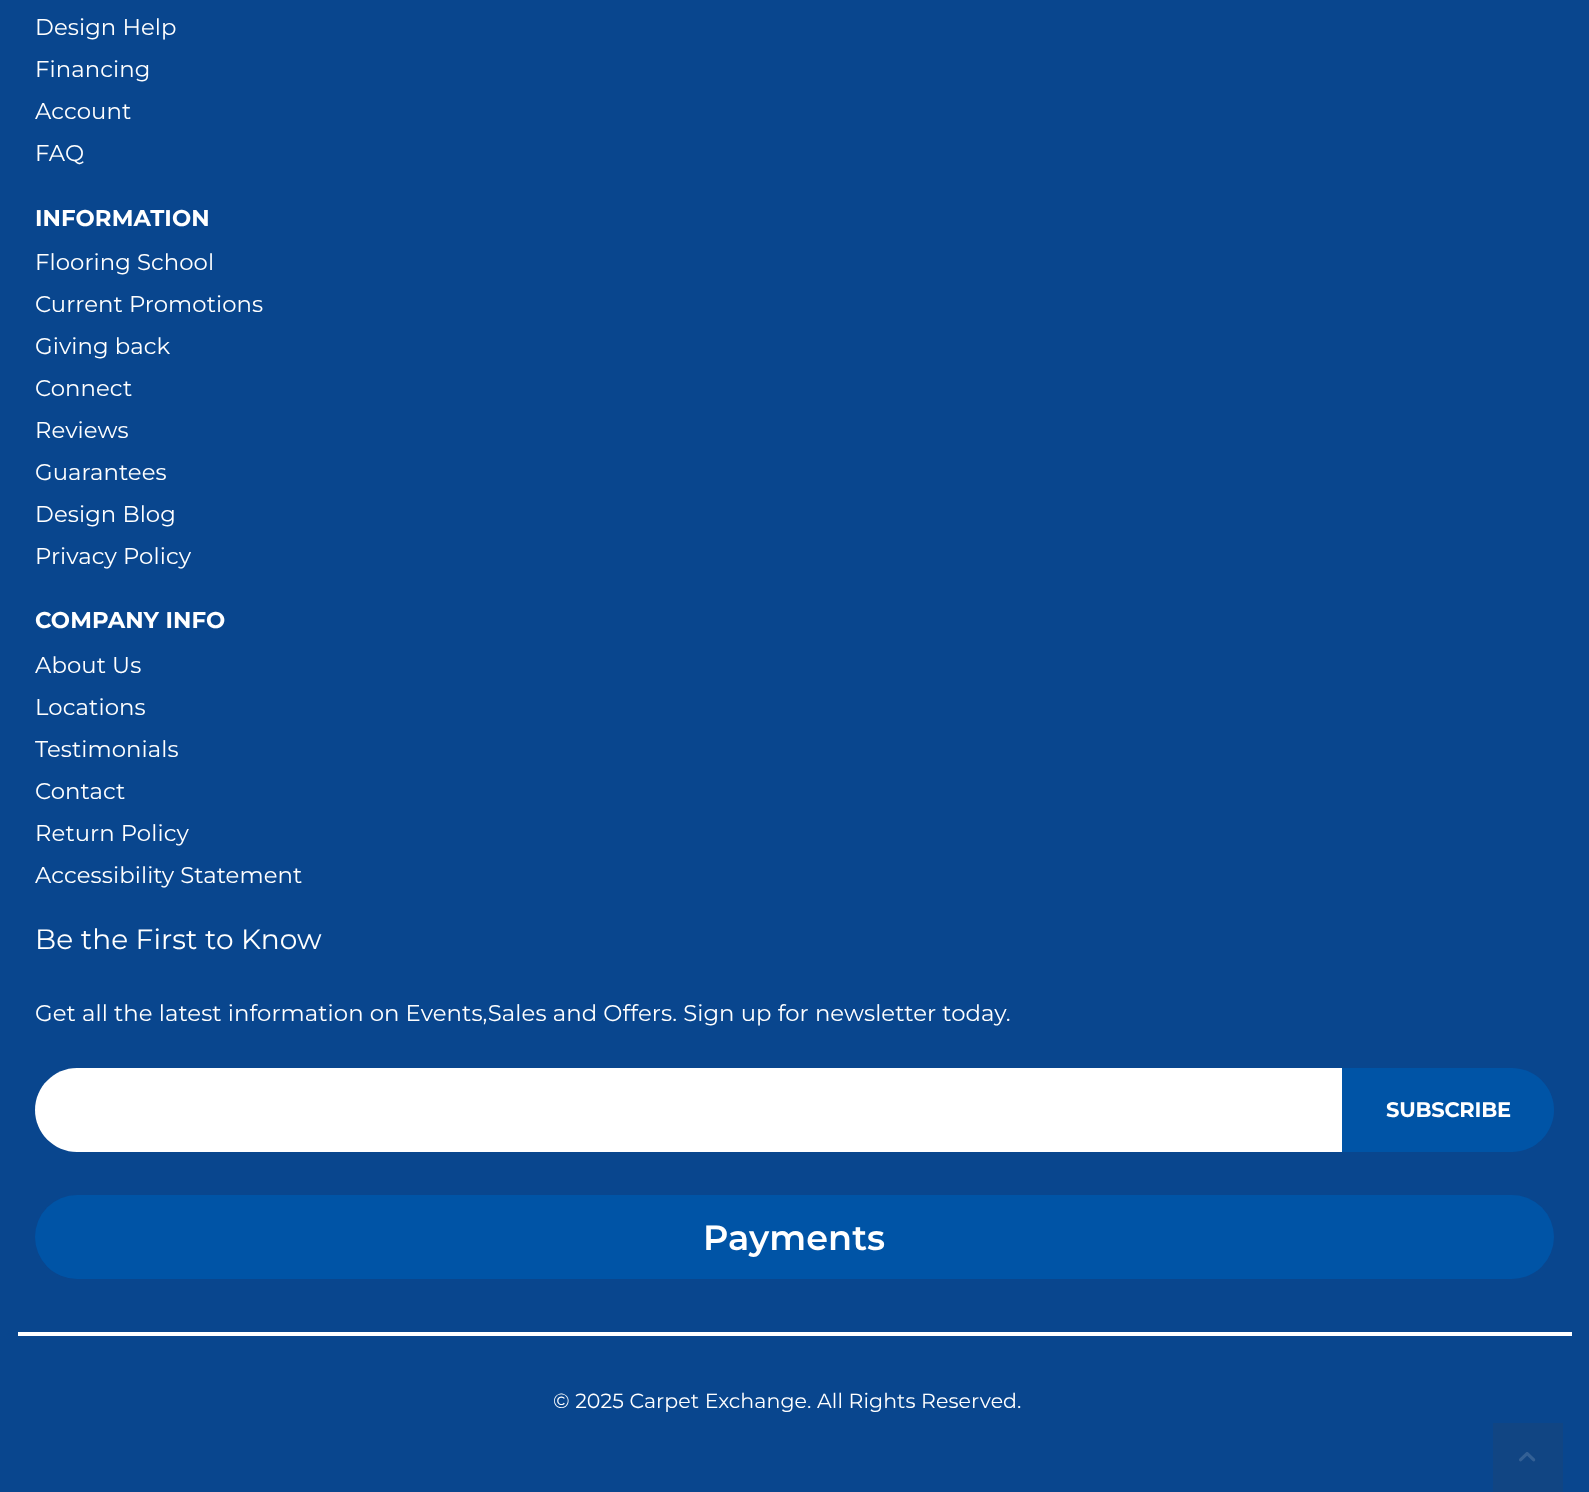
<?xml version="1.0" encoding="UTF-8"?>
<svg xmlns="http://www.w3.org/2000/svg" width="1589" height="1492">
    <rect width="100%" height="100%" fill="#09468E"/>
    <text font-family="Montserrat" font-size="22.75" letter-spacing="0.1" fill="#FFFFFF">
        <tspan x="35" y="35">Design Help</tspan>
        <tspan x="35" y="77">Financing</tspan>
        <tspan x="35" y="119">Account</tspan>
        <tspan x="35" y="161">FAQ</tspan>
    </text>
    <text x="35" y="226" font-family="Montserrat" font-size="22.75" font-weight="700" letter-spacing="0.1" fill="#FFFFFF">INFORMATION</text>
    <text font-family="Montserrat" font-size="22.75" letter-spacing="0.1" fill="#FFFFFF">
        <tspan x="35" y="270">Flooring School</tspan>
        <tspan x="35" y="312">Current Promotions</tspan>
        <tspan x="35" y="354">Giving back</tspan>
        <tspan x="35" y="396">Connect</tspan>
        <tspan x="35" y="438">Reviews</tspan>
        <tspan x="35" y="480">Guarantees</tspan>
        <tspan x="35" y="522">Design Blog</tspan>
        <tspan x="35" y="564">Privacy Policy</tspan>
    </text>
    <text x="35" y="628" font-family="Montserrat" font-size="22.75" font-weight="700" letter-spacing="0.1" fill="#FFFFFF">COMPANY INFO</text>
    <text font-family="Montserrat" font-size="22.75" letter-spacing="0.1" fill="#FFFFFF">
        <tspan x="35" y="673">About Us</tspan>
        <tspan x="35" y="715">Locations</tspan>
        <tspan x="35" y="757">Testimonials</tspan>
        <tspan x="35" y="799">Contact</tspan>
        <tspan x="35" y="841">Return Policy</tspan>
        <tspan x="35" y="883">Accessibility Statement</tspan>
    </text>
    <text x="35" y="949" font-family="Montserrat" font-size="28" letter-spacing="0.1" fill="#FFFFFF">Be the First to Know</text>
    <text x="35" y="1021" font-family="Montserrat" font-size="22.75" letter-spacing="0.1" fill="#FFFFFF">Get all the latest information on Events,Sales and Offers. Sign up for newsletter today.</text>
    <path d="M 77 1068 H 1342 V 1152 H 77 C 54 1152 35 1133 35 1110 C 35 1087 54 1068 77 1068 Z" fill="#FFFFFF"/>
    <path d="M 1342 1068 H 1512 C 1535 1068 1554 1087 1554 1110 C 1554 1133 1535 1152 1512 1152 H 1342 Z" fill="#0054A6"/>
    <text x="1386" y="1117" font-family="Montserrat" font-size="21" font-weight="700" letter-spacing="-0.25" fill="#FFFFFF">SUBSCRIBE</text>
    <rect x="35" y="1195" width="1519" height="84" rx="42" fill="#0054A6"/>
    <text x="703" y="1250" font-family="Montserrat" font-size="35" font-weight="600" letter-spacing="0.1" fill="#FFFFFF">Payments</text>
    <rect x="18" y="1332" width="1554" height="4" fill="#FFFFFF"/>
    <text x="553" y="1408" font-family="Montserrat" font-size="20.5" letter-spacing="0.1" fill="#FFFFFF">© 2025 Carpet Exchange. All Rights Reserved.</text>
    <rect x="1493" y="1423" width="70" height="69" fill="#114583"/>
    <image x="1519" y="1452" width="17" height="10" href="img_01.png"/>
</svg>
